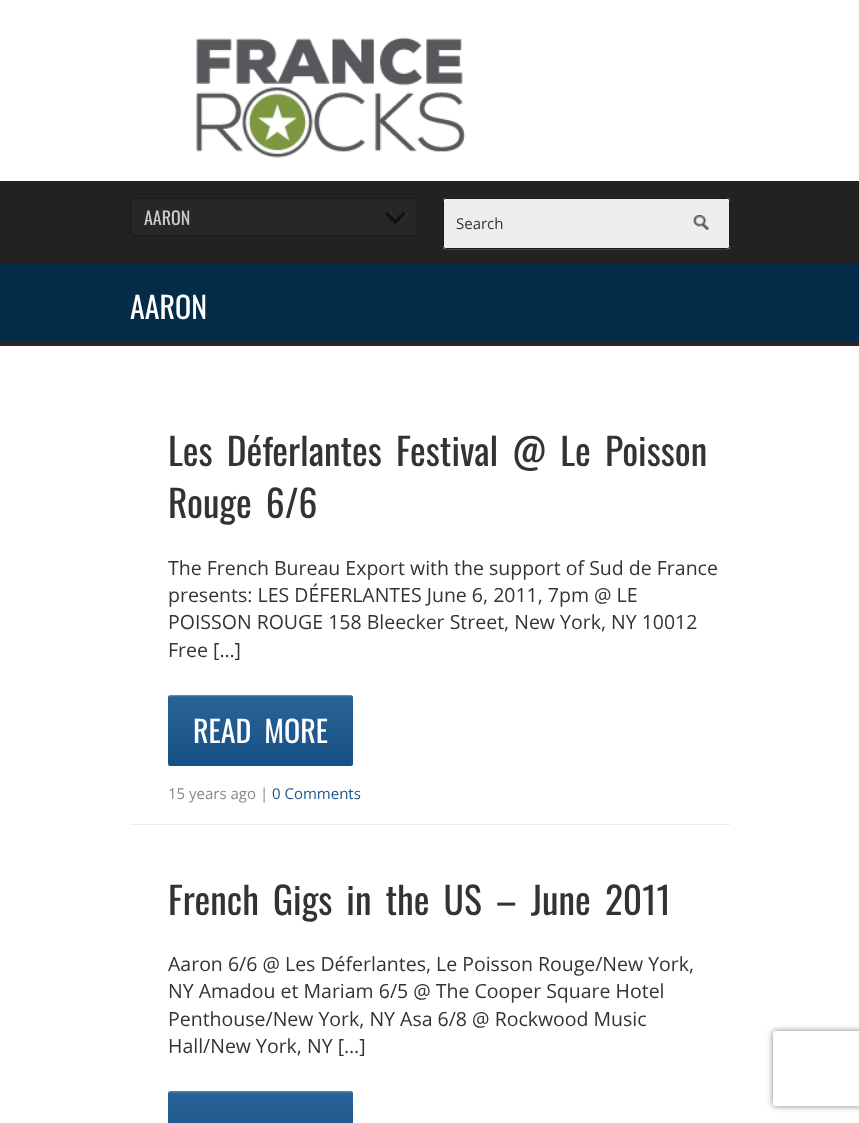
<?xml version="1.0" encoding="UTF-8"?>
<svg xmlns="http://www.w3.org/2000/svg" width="859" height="1123">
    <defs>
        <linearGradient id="g1" gradientUnits="userSpaceOnUse" x1="168" y1="766" x2="168" y2="695"><stop offset="0" stop-color="#000000" stop-opacity="0.08"/><stop offset="0.5" stop-color="#808080" stop-opacity="0.08"/><stop offset="1" stop-color="#FFFFFF" stop-opacity="0.08"/></linearGradient>
        <linearGradient id="g2" gradientUnits="userSpaceOnUse" x1="168" y1="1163" x2="168" y2="1091"><stop offset="0" stop-color="#000000" stop-opacity="0.08"/><stop offset="0.5" stop-color="#808080" stop-opacity="0.08"/><stop offset="1" stop-color="#FFFFFF" stop-opacity="0.08"/></linearGradient>
        <clipPath id="clip1"><path d="M 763 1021 H 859 V 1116 H 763 Z M 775.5 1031 H 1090.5 C 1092 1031 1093 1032 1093 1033.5 V 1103.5 C 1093 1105 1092 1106 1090.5 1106 H 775.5 C 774 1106 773 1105 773 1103.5 V 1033.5 C 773 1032 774 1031 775.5 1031 Z" clip-rule="evenodd"/></clipPath>
        <filter id="blur1" x="-50%" y="-200%" width="200%" height="500%"><feGaussianBlur stdDeviation="3"/></filter>
    </defs>
    <rect width="100%" height="100%" fill="#FFFFFF"/>
    <rect x="0" y="181" width="859" height="82" fill="#222222"/>
    <image x="196" y="37" width="270" height="121" href="img_01.png"/>
    <rect x="130" y="198" width="288" height="38" rx="2.5" fill="#272727"/>
    <image x="385" y="211" width="23" height="14" href="img_02.png"/>
    <rect x="130.5" y="198.5" width="287" height="37" rx="2" fill="none" stroke="#1B1B1B"/>
    <text x="144" y="225" font-family="Oswald" font-size="18" fill="#CCCCCC">AARON</text>
    <path d="M 443 248 C 443 249 444 250 446 250 H 728 C 729 250 730 249 730 248 V 246 C 730 247 729 248 728 249 H 445 Z" fill="#3F3F3F"/>
    <rect x="443" y="198" width="287" height="51" rx="2.5" fill="#EEEEEE"/>
    <image x="693" y="215" width="16" height="15" href="img_03.png"/>
    <rect x="443.5" y="198.5" width="286" height="50" rx="2" fill="none" stroke="#1B1B1B"/>
    <text x="456" y="229" font-family="Open Sans" font-size="15" fill="#333333">Search</text>
    <rect x="0" y="263" width="859" height="78" fill="#042B47"/>
    <rect x="0" y="341" width="859" height="5" fill="#272727"/>
    <text x="130" y="319" font-family="Oswald" font-size="30" fill="#FFFFFF">AARON</text>
    <rect x="130" y="824" width="600" height="1" fill="#EBEBEB"/>
    <text font-family="Oswald" font-size="37.5" fill="#333333">
        <tspan x="168" y="466" word-spacing="5.5">Les Déferlantes Festival @ Le Poisson</tspan>
        <tspan x="168" y="518" word-spacing="5.5">Rouge 6/6</tspan>
    </text>
    <text font-family="Open Sans" font-size="19.5" fill="#333333">
        <tspan x="168" y="575">The French Bureau Export with the support of Sud de France</tspan>
        <tspan x="168" y="602">presents: LES DÉFERLANTES June 6, 2011, 7pm @ LE</tspan>
        <tspan x="168" y="629">POISSON ROUGE 158 Bleecker Street, New York, NY 10012</tspan>
        <tspan x="168" y="657">Free […]</tspan>
    </text>
    <rect x="168" y="695" width="185" height="71" rx="2.5" fill="#18568F"/>
    <rect x="168" y="695" width="185" height="71" rx="2.5" fill="url(#g1)"/>
    <image x="168" y="695" width="185" height="2" href="img_04.png"/>
    <text x="193" y="743" word-spacing="6" font-family="Oswald" font-size="30" fill="#FFFFFF">READ MORE</text>
    <text x="168" y="799" font-family="Open Sans" font-size="15" fill="#888888">15 years ago |</text>
    <text x="272" y="799" font-family="Open Sans" font-size="15" fill="#18568F">0 Comments</text>
    <text x="168" y="915" word-spacing="5.5" font-family="Oswald" font-size="37.5" fill="#333333">French Gigs in the US – June 2011</text>
    <text font-family="Open Sans" font-size="19.5" fill="#333333">
        <tspan x="168" y="971">Aaron 6/6 @ Les Déferlantes, Le Poisson Rouge/New York,</tspan>
        <tspan x="168" y="998">NY Amadou et Mariam 6/5 @ The Cooper Square Hotel</tspan>
        <tspan x="168" y="1026">Penthouse/New York, NY Asa 6/8 @ Rockwood Music</tspan>
        <tspan x="168" y="1053">Hall/New York, NY […]</tspan>
    </text>
    <rect x="168" y="1091" width="185" height="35" rx="2.5" fill="#18568F"/>
    <rect x="168" y="1091" width="185" height="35" rx="2.5" fill="url(#g2)"/>
    <image x="168" y="1091" width="185" height="2" href="img_05.png"/>
    <g clip-path="url(#clip1)">
        <rect x="773" y="1031" width="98" height="75" rx="2.5" fill="#808080" filter="url(#blur1)"/>
    </g>
</svg>
